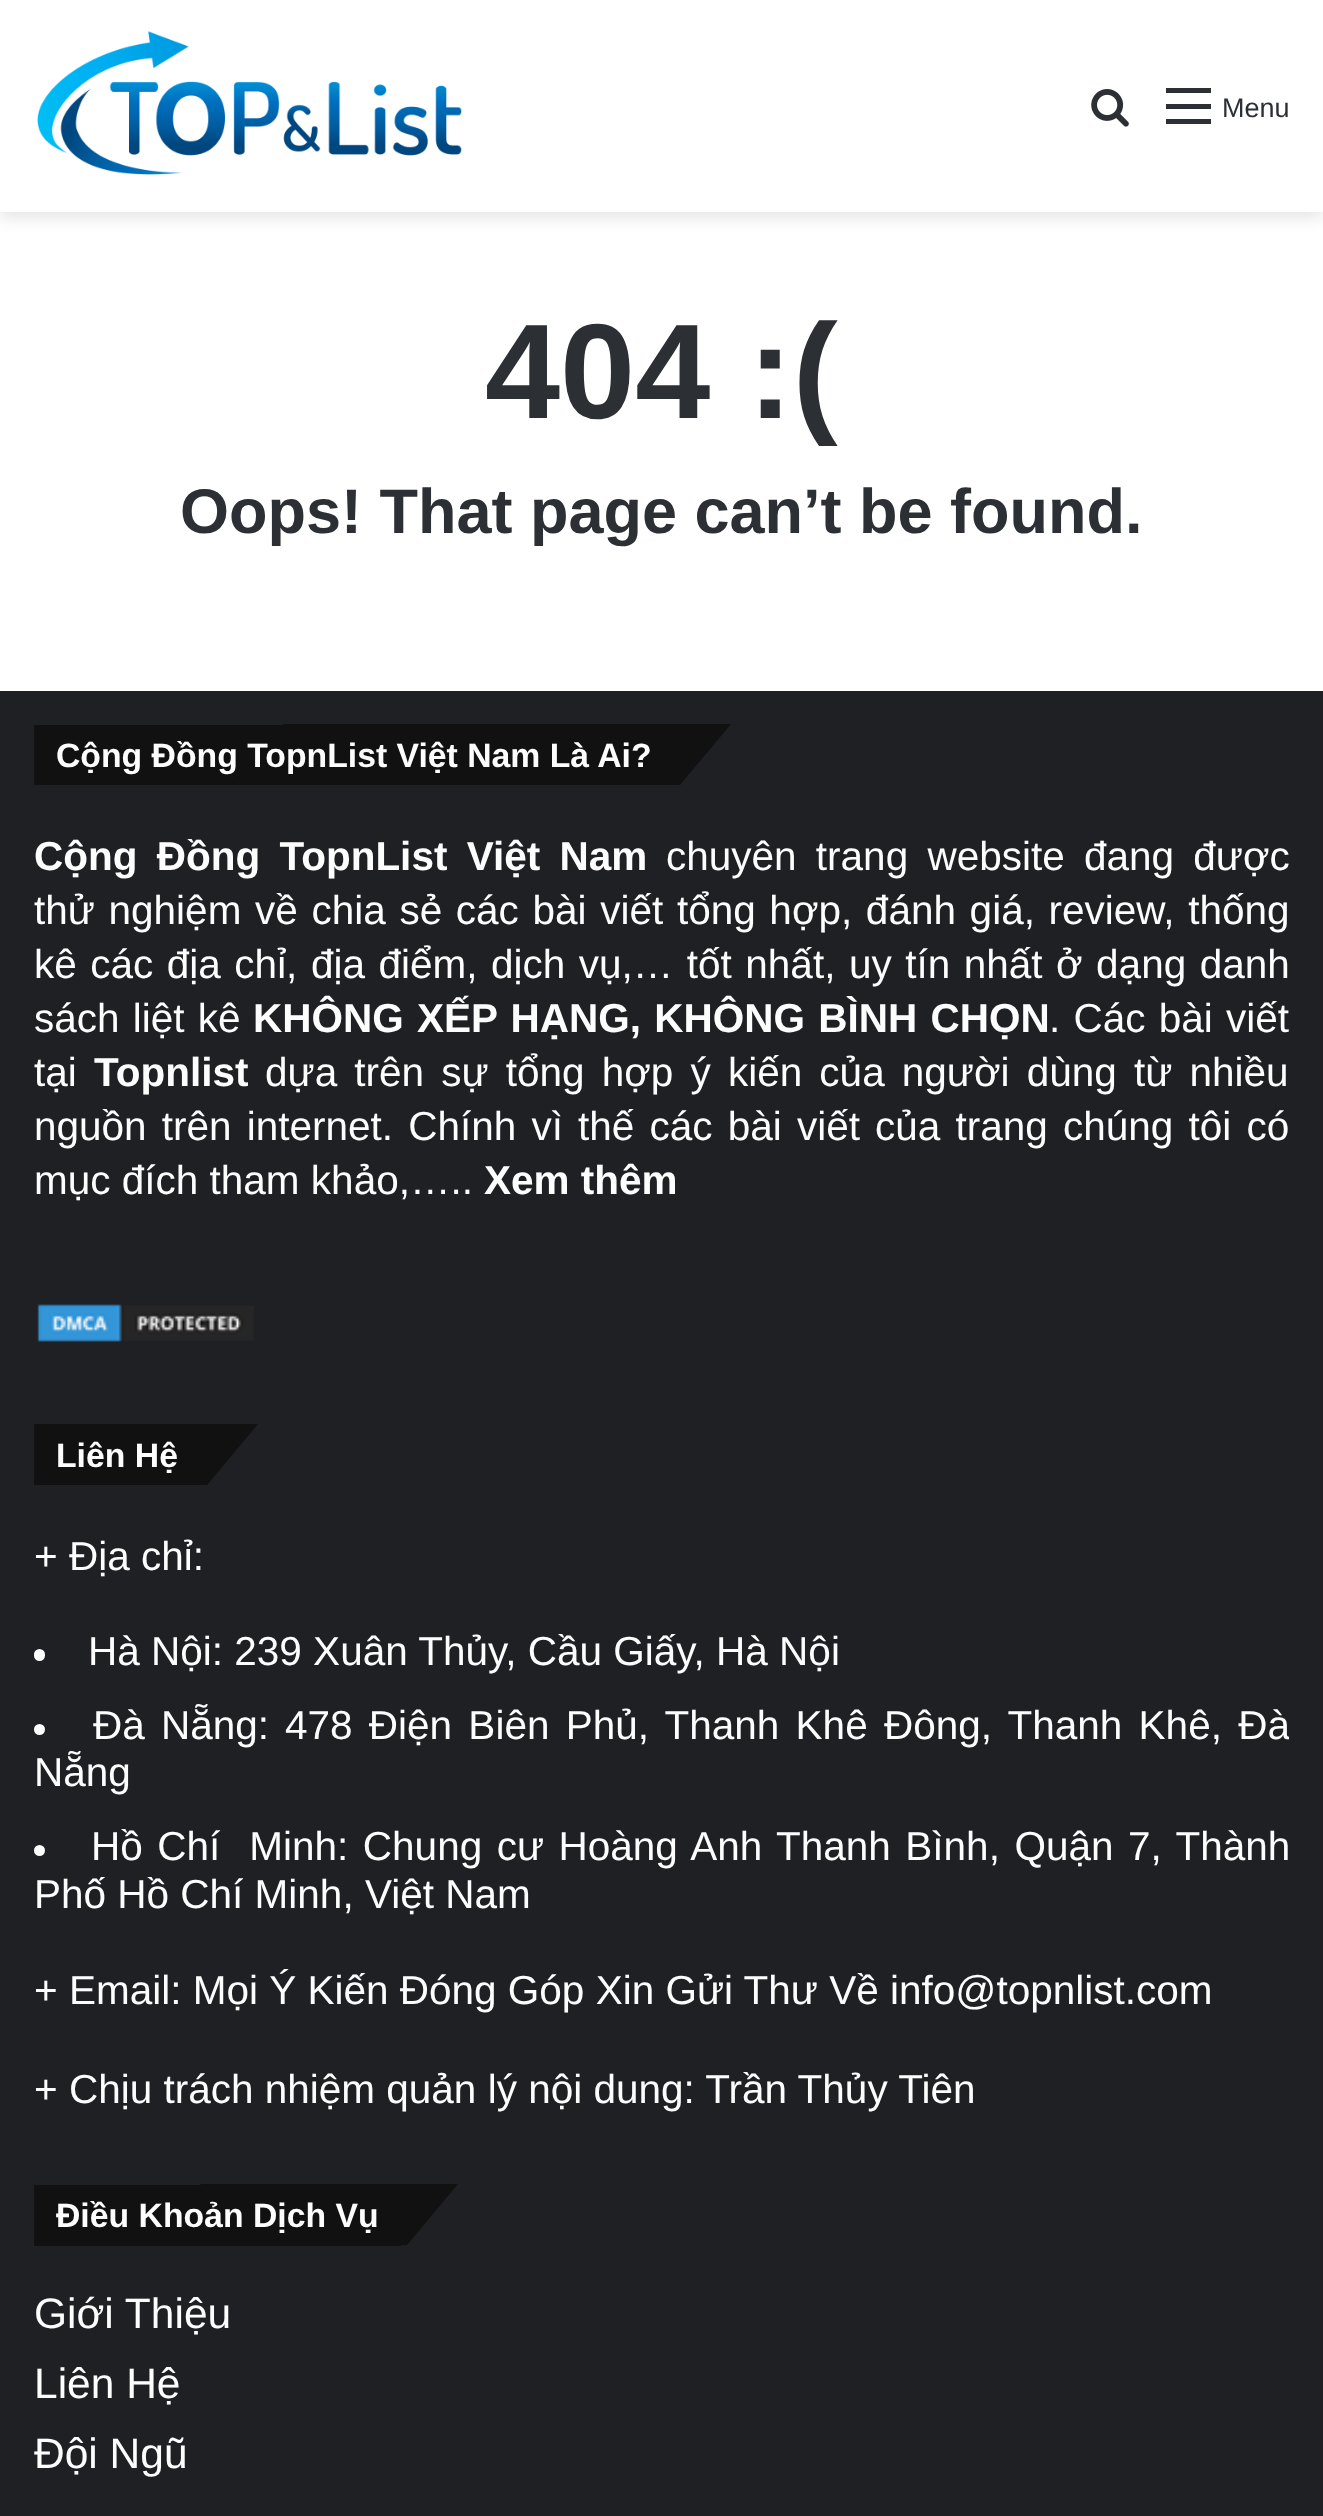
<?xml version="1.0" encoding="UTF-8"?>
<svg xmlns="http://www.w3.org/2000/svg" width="1323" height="2516">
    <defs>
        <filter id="blur1" x="-50%" y="-200%" width="200%" height="500%"><feGaussianBlur stdDeviation="8"/></filter>
        <clipPath id="clip1"><rect x="34" y="1530" width="1255" height="587"/></clipPath>
    </defs>
    <rect width="100%" height="100%" fill="#FFFFFF"/>
    <rect x="0" y="7" width="1323" height="211" fill="#000000" fill-opacity="0.1" filter="url(#blur1)"/>
    <rect x="0" y="0" width="1323" height="212" fill="#FFFFFF"/>
    <image x="37" y="31" width="425" height="144" href="img_01.png"/>
    <image x="1091" y="89" width="38" height="38" href="img_02.png"/>
    <rect x="1166" y="104" width="45" height="5" fill="#2C2F34"/>
    <rect x="1166" y="88" width="45" height="5" fill="#2C2F34"/>
    <rect x="1166" y="119" width="45" height="5" fill="#2C2F34"/>
    <text x="1222" y="117" font-family="Liberation Sans" font-size="27" fill="#2C2F34">Menu</text>
    <text x="485" y="418" font-family="Liberation Sans" font-size="135" font-weight="700" fill="#2C2F34">404 :(</text>
    <text x="180" y="533" font-family="Liberation Sans" font-size="63" font-weight="700" fill="#2C2F34">Oops! That page can’t be found.</text>
    <rect x="0" y="691" width="1323" height="1825" fill="#1F2024"/>
    <rect x="34" y="725" width="249" height="60" fill="#111111"/>
    <path d="M 283 724 H 731 L 680 785 H 232 Z" fill="#111111"/>
    <text x="56" y="767" font-family="Liberation Sans" font-size="33.75" font-weight="700" fill="#FDFDFD">Cộng Đồng TopnList Việt Nam Là Ai?</text>
    <text x="34" y="870" word-spacing="8" font-family="Liberation Sans" font-size="40.5" font-weight="700" fill="#FDFDFD">Cộng Đồng TopnList Việt Nam</text>
    <text x="666" y="870" word-spacing="8" font-family="Liberation Sans" font-size="40.5" fill="#FDFDFD">chuyên trang website đang được</text>
    <text font-family="Liberation Sans" font-size="40.5" fill="#FDFDFD">
        <tspan x="34" y="924" word-spacing="2.4">thử nghiệm về chia sẻ các bài viết tổng hợp, đánh giá, review, thống</tspan>
        <tspan x="34" y="978" word-spacing="2.25">kê các địa chỉ, địa điểm, dịch vụ,… tốt nhất, uy tín nhất ở dạng danh</tspan>
        <tspan x="34" y="1032" word-spacing="2">sách liệt kê</tspan>
    </text>
    <text x="253" y="1032" word-spacing="2" font-family="Liberation Sans" font-size="40.5" font-weight="700" fill="#FDFDFD">KHÔNG XẾP HẠNG, KHÔNG BÌNH CHỌN</text>
    <text x="1049" y="1032" word-spacing="2" font-family="Liberation Sans" font-size="40.5" fill="#FDFDFD">. Các bài viết</text>
    <text x="34" y="1086" font-family="Liberation Sans" font-size="40.5" fill="#FDFDFD">tại</text>
    <text x="94" y="1086" font-family="Liberation Sans" font-size="40.5" font-weight="700" fill="#FDFDFD">Topnlist</text>
    <text x="265" y="1086" word-spacing="5.9" font-family="Liberation Sans" font-size="40.5" fill="#FDFDFD">dựa trên sự tổng hợp ý kiến của người dùng từ nhiều</text>
    <text font-family="Liberation Sans" font-size="40.5" fill="#FDFDFD">
        <tspan x="34" y="1140" word-spacing="3.9">nguồn trên internet. Chính vì thế các bài viết của trang chúng tôi có</tspan>
        <tspan x="34" y="1194">mục đích tham khảo,…..</tspan>
    </text>
    <text x="484" y="1194" font-family="Liberation Sans" font-size="40.5" font-weight="700" fill="#FDFDFD">Xem thêm</text>
    <image x="37" y="1304" width="217" height="38" href="img_03.png"/>
    <rect x="34" y="1424" width="107" height="61" fill="#111111"/>
    <path d="M 141 1424 H 258 L 207 1485 H 90 Z" fill="#111111"/>
    <text x="56" y="1467" font-family="Liberation Sans" font-size="33.75" font-weight="700" fill="#FDFDFD">Liên Hệ</text>
    <text x="34" y="1570" font-family="Liberation Sans" font-size="40.5" fill="#FDFDFD">+ Địa chỉ:</text>
    <rect x="34" y="1649" width="11" height="12" rx="5.5" fill="#FDFDFD"/>
    <text x="88" y="1665" font-family="Liberation Sans" font-size="40.5" fill="#FDFDFD">Hà Nội: 239 Xuân Thủy, Cầu Giấy, Hà Nội</text>
    <circle cx="39.5" cy="1729.5" r="5.5" fill="#FDFDFD"/>
    <text x="93" y="1739" word-spacing="5" font-family="Liberation Sans" font-size="40.5" fill="#FDFDFD">Đà Nẵng:</text>
    <g clip-path="url(#clip1)">
        <text x="285" y="1739" word-spacing="5" font-family="Liberation Sans" font-size="40.5" fill="#FDFDFD">478 Điện Biên Phủ, Thanh Khê Đông, Thanh Khê, Đà</text>
    </g>
    <text x="34" y="1786" font-family="Liberation Sans" font-size="40.5" fill="#FDFDFD">Nẵng</text>
    <circle cx="39.5" cy="1850.5" r="5.5" fill="#FDFDFD"/>
    <text x="91" y="1860" word-spacing="3.25" font-family="Liberation Sans" font-size="40.5" fill="#FDFDFD" xml:space="preserve">Hồ Chí  Minh: Chung cư Hoàng Anh Thanh Bình, Quận 7, Thành</text>
    <text x="34" y="1908" font-family="Liberation Sans" font-size="40.5" fill="#FDFDFD">Phố Hồ Chí Minh, Việt Nam</text>
    <text x="34" y="2004" font-family="Liberation Sans" font-size="40.5" fill="#FDFDFD">+ Email: Mọi Ý Kiến Đóng Góp Xin Gửi Thư Về info@topnlist.com</text>
    <text x="34" y="2103" font-family="Liberation Sans" font-size="40.5" fill="#FDFDFD">+ Chịu trách nhiệm quản lý nội dung: Trần Thủy Tiên</text>
    <rect x="34" y="2185" width="367" height="61" fill="#111111"/>
    <path d="M 201 2184 H 458 L 407 2245 H 150 Z" fill="#111111"/>
    <text x="56" y="2227" font-family="Liberation Sans" font-size="33.75" font-weight="700" fill="#FDFDFD">Điều Khoản Dịch Vụ</text>
    <text font-family="Liberation Sans" font-size="42.5" fill="#FDFDFD">
        <tspan x="34" y="2328">Giới Thiệu</tspan>
        <tspan x="34" y="2398">Liên Hệ</tspan>
        <tspan x="34" y="2468">Đội Ngũ</tspan>
    </text>
</svg>
